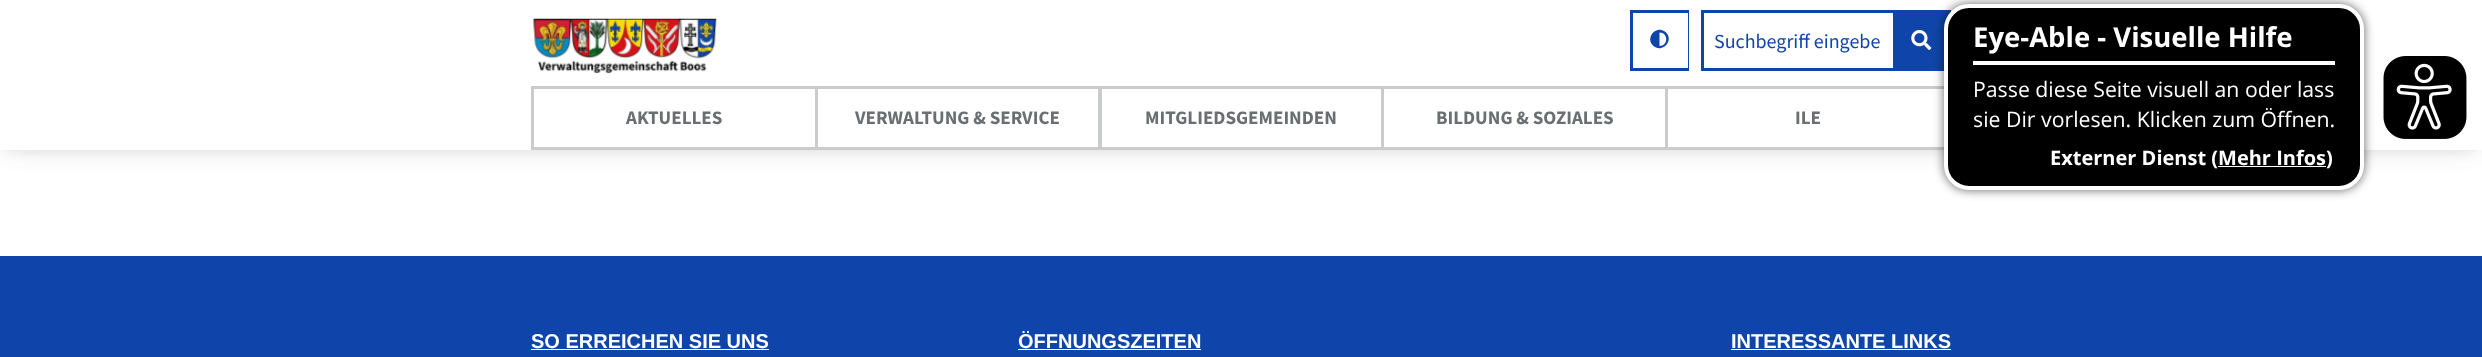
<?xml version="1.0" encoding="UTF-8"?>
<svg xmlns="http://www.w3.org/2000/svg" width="2482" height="357">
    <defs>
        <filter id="blur1" x="-50%" y="-200%" width="200%" height="500%"><feGaussianBlur stdDeviation="12.5"/></filter>
        <filter id="blur2" x="-50%" y="-200%" width="200%" height="500%"><feGaussianBlur stdDeviation="5"/></filter>
    </defs>
    <rect width="100%" height="100%" fill="#FFFFFF"/>
    <rect x="6" y="6" width="2470" height="138" fill="#6F6F6F" fill-opacity="0.5" filter="url(#blur1)"/>
    <rect x="0" y="0" width="2482" height="150" fill="#FFFFFF"/>
    <image x="533" y="18" width="184" height="56" href="img_01.png"/>
    <rect x="1631.5" y="11.5" width="56" height="58" fill="none" stroke="#0F45AA" stroke-width="3"/>
    <rect x="1686" y="13" width="2" height="55" fill="#FFFFFF"/>
    <path d="M 1653 45.5 C 1644.5 37 1657.5 24 1666 32.5 C 1674.5 41 1661.5 54 1653 45.5 Z M 1659.5 46 C 1668.5 46 1668.5 32.5 1659.5 32.5 Z" fill="#0F45AA"/>
    <rect x="1702.5" y="11.5" width="247" height="58" fill="none" stroke="#0F45AA" stroke-width="3"/>
    <text x="1714" y="48" font-family="Source Sans Pro" font-size="20" fill="#0F45AA">Suchbegriff eingebe</text>
    <rect x="1893" y="13" width="55" height="55" fill="#0F45AA"/>
    <image x="1911" y="30" width="21" height="20" href="img_02.png"/>
    <rect x="532.5" y="87.5" width="284" height="61" fill="none" stroke="#CACBCB" stroke-width="3"/>
    <text x="626" y="124" font-family="Source Sans Pro" font-size="19" font-weight="700" fill="#6A7071">AKTUELLES</text>
    <rect x="816.5" y="87.5" width="283" height="61" fill="none" stroke="#CACBCB" stroke-width="3"/>
    <text x="855" y="124" font-family="Source Sans Pro" font-size="19" font-weight="700" fill="#6A7071">VERWALTUNG &amp; SERVICE</text>
    <rect x="1100.5" y="87.5" width="282" height="61" fill="none" stroke="#CACBCB" stroke-width="3"/>
    <text x="1145" y="124" font-family="Source Sans Pro" font-size="19" font-weight="700" fill="#6A7071">MITGLIEDSGEMEINDEN</text>
    <rect x="1382.5" y="87.5" width="284" height="61" fill="none" stroke="#CACBCB" stroke-width="3"/>
    <text x="1436" y="124" font-family="Source Sans Pro" font-size="19" font-weight="700" fill="#6A7071">BILDUNG &amp; SOZIALES</text>
    <rect x="1666.5" y="87.5" width="283" height="61" fill="none" stroke="#CACBCB" stroke-width="3"/>
    <text x="1795" y="124" font-family="Source Sans Pro" font-size="19" font-weight="700" fill="#6A7071">ILE</text>
    <rect x="1943" y="3" width="422" height="188" rx="26" fill="#000000" fill-opacity="0.5" filter="url(#blur2)"/>
    <rect x="1946" y="6" width="416" height="182" rx="23" fill="#000000" stroke="#FFFFFF" stroke-width="4"/>
    <rect x="1973" y="61" width="362" height="4" fill="#FFFFFF"/>
    <text x="1973" y="47" font-family="Open Sans" font-size="27.5" font-weight="700" fill="#FFFFFF">Eye-Able - Visuelle Hilfe</text>
    <text font-family="Open Sans" font-size="21.25" fill="#FFFFFF">
        <tspan x="1973" y="97">Passe diese Seite visuell an oder lass</tspan>
        <tspan x="1973" y="127">sie Dir vorlesen. Klicken zum Öffnen.</tspan>
    </text>
    <text x="2050" y="165" font-family="Open Sans" font-size="20" font-weight="700" fill="#FFFFFF">Externer Dienst (Mehr Infos)</text>
    <rect x="2218" y="166" width="108" height="1" fill="#FFFFFF"/>
    <image x="2383" y="56" width="84" height="83" href="img_03.png"/>
    <rect x="0" y="256" width="2482" height="101" fill="#0F45AA"/>
    <text x="531" y="348" font-family="Liberation Sans" font-size="20" font-weight="700" fill="#FFFFFF">SO ERREICHEN SIE UNS</text>
    <rect x="531" y="349" width="238" height="1" fill="#FFFFFF"/>
    <text x="1018" y="348" font-family="Liberation Sans" font-size="20" font-weight="700" fill="#FFFFFF">ÖFFNUNGSZEITEN</text>
    <rect x="1018" y="349" width="183" height="1" fill="#FFFFFF"/>
    <text x="1731" y="348" font-family="Liberation Sans" font-size="20" font-weight="700" fill="#FFFFFF">INTERESSANTE LINKS</text>
    <rect x="1731" y="349" width="220" height="1" fill="#FFFFFF"/>
</svg>
